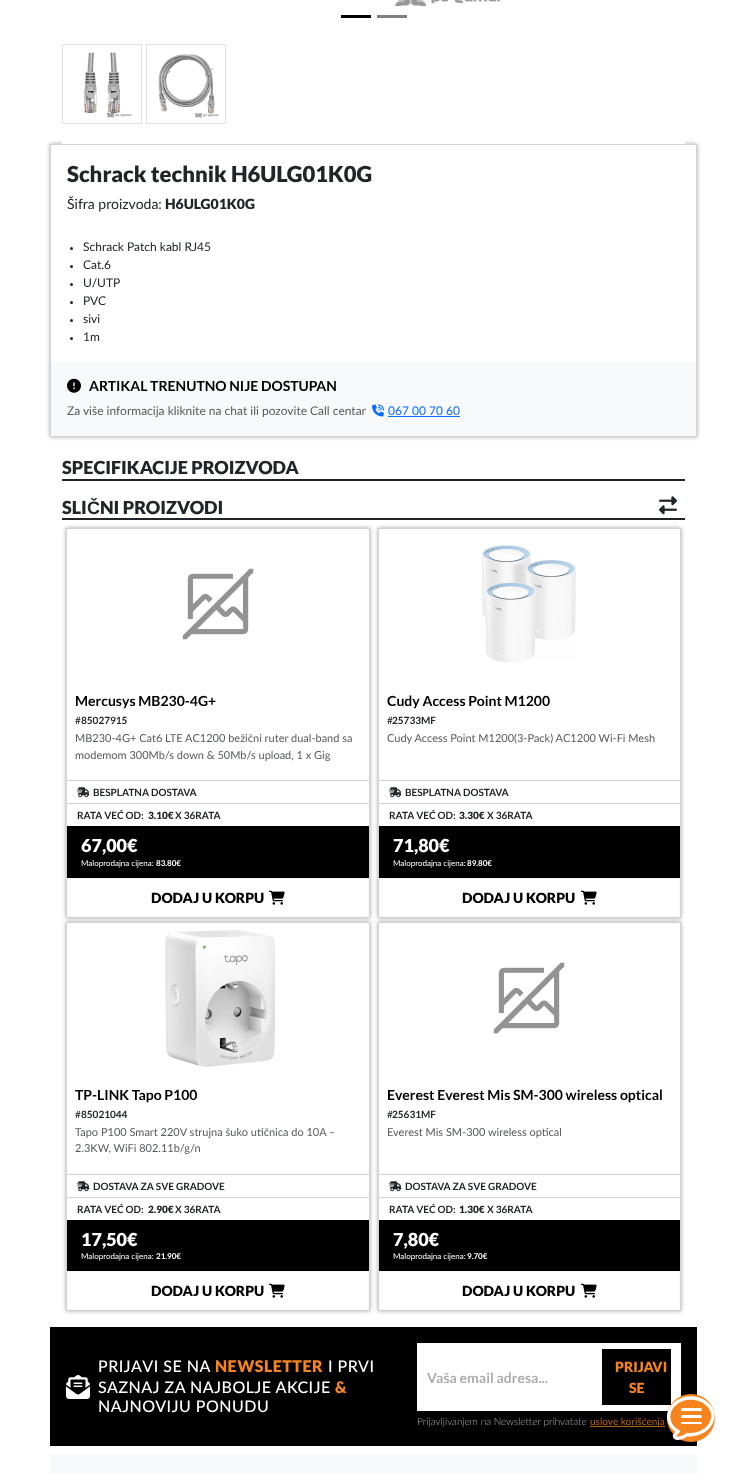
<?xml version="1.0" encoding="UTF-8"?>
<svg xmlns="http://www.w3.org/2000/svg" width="747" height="1474">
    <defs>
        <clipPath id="clip1"><path d="M 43 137 H 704 V 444 H 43 Z M 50 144 H 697 V 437 H 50 Z" clip-rule="evenodd"/></clipPath>
        <filter id="blur1" x="-50%" y="-200%" width="200%" height="500%"><feGaussianBlur stdDeviation="2"/></filter>
        <clipPath id="clip2"><path d="M 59 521 H 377 V 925 H 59 Z M 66 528 H 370 V 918 H 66 Z" clip-rule="evenodd"/></clipPath>
        <clipPath id="clip3"><path d="M 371 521 H 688 V 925 H 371 Z M 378 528 H 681 V 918 H 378 Z" clip-rule="evenodd"/></clipPath>
        <clipPath id="clip4"><path d="M 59 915 H 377 V 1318 H 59 Z M 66 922 H 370 V 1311 H 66 Z" clip-rule="evenodd"/></clipPath>
        <clipPath id="clip5"><path d="M 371 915 H 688 V 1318 H 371 Z M 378 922 H 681 V 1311 H 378 Z" clip-rule="evenodd"/></clipPath>
    </defs>
    <rect width="100%" height="100%" fill="#FFFFFF"/>
    <image x="394" y="0" width="107" height="7" href="img_01.png"/>
    <rect x="341" y="15" width="30" height="3" fill="#000000"/>
    <rect x="377" y="15" width="30" height="3" fill="#808080"/>
    <g clip-path="url(#clip1)">
        <rect x="50" y="144" width="647" height="293" fill="#A4A6A4" filter="url(#blur1)"/>
    </g>
    <rect x="62" y="140" width="623" height="4" fill="#FFFFFF"/>
    <rect x="62.5" y="44.5" width="79" height="79" fill="none" stroke="#DEE2E6"/>
    <rect x="146.5" y="44.5" width="79" height="79" fill="none" stroke="#DEE2E6"/>
    <image x="84" y="52" width="48" height="66" href="img_02.png"/>
    <image x="158" y="54" width="61" height="64" href="img_03.png"/>
    <rect x="50.5" y="144.5" width="646" height="292" fill="none" stroke="#D2D2D2"/>
    <text x="67" y="182" font-family="Lato" font-size="22" font-weight="900" fill="#212529">Schrack technik H6ULG01K0G</text>
    <text x="67" y="209" font-family="Lato" font-size="14" fill="#212529">Šifra proizvoda:</text>
    <text x="165" y="209" font-family="Lato" font-size="14" font-weight="900" fill="#212529">H6ULG01K0G</text>
    <circle cx="71.5" cy="248.5" r="1.5" fill="#212529"/>
    <text x="83" y="251" font-family="Lato" font-size="12" fill="#212529">Schrack Patch kabl RJ45</text>
    <circle cx="71.5" cy="266.5" r="1.5" fill="#212529"/>
    <text x="83" y="269" font-family="Lato" font-size="12" fill="#212529">Cat.6</text>
    <circle cx="71.5" cy="284.5" r="1.5" fill="#212529"/>
    <text x="83" y="287" font-family="Lato" font-size="12" fill="#212529">U/UTP</text>
    <circle cx="71.5" cy="302.5" r="1.5" fill="#212529"/>
    <text x="83" y="305" font-family="Lato" font-size="12" fill="#212529">PVC</text>
    <circle cx="71.5" cy="320.5" r="1.5" fill="#212529"/>
    <text x="83" y="323" font-family="Lato" font-size="12" fill="#212529">sivi</text>
    <circle cx="71.5" cy="338.5" r="1.5" fill="#212529"/>
    <text x="83" y="341" font-family="Lato" font-size="12" fill="#212529">1m</text>
    <rect x="51" y="362" width="645" height="74" fill="#F8F9FA"/>
    <image x="67" y="378" width="14" height="15" href="img_04.png"/>
    <text x="89" y="391" font-family="Lato" font-size="14" font-weight="700" fill="#000000">ARTIKAL TRENUTNO NIJE DOSTUPAN</text>
    <text x="67" y="415" font-family="Lato" font-size="12" fill="#575A5D">Za više informacija kliknite na chat ili pozovite Call centar</text>
    <image x="372" y="404" width="12" height="13" href="img_05.png"/>
    <text x="388" y="415" font-family="Lato" font-size="12" fill="#0D6EFD">067 00 70 60</text>
    <rect x="388" y="416" width="72" height="1" fill="#0D6EFD"/>
    <rect x="62" y="479" width="623" height="2" fill="#212529"/>
    <text x="62" y="474" font-family="Lato" font-size="18" font-weight="900" fill="#212529">SPECIFIKACIJE PROIZVODA</text>
    <rect x="62" y="518" width="623" height="2" fill="#212529"/>
    <text x="62" y="514" font-family="Lato" font-size="18" font-weight="900" fill="#212529">SLI</text>
    <text x="87" y="514" font-family="Liberation Sans" font-size="18" font-weight="700" fill="#212529">Č</text>
    <text x="100" y="514" font-family="Lato" font-size="18" font-weight="900" fill="#212529">NI PROIZVODI</text>
    <image x="659" y="496" width="18" height="19" href="img_06.png"/>
    <g clip-path="url(#clip2)">
        <rect x="66" y="528" width="304" height="390" fill="#A4A6A4" filter="url(#blur1)"/>
    </g>
    <rect x="66.5" y="528.5" width="303" height="389" fill="none" stroke="#D2D2D2"/>
    <image x="182" y="568" width="72" height="72" href="img_07.png"/>
    <text x="75" y="706" font-family="Lato" font-size="14" font-weight="700" fill="#000000">Mercusys MB230-4G+</text>
    <text x="75" y="724" font-family="Lato" font-size="10" font-weight="500" fill="#212529">#</text>
    <text x="81" y="724" font-family="Lato" font-size="10" font-weight="700" fill="#212529">85027915</text>
    <text font-family="Lato" font-size="11" fill="#575A5D">
        <tspan x="75" y="742">MB230-4G+ Cat6 LTE AC1200 bežični ruter dual-band sa</tspan>
        <tspan x="75" y="759">modemom 300Mb/s down &amp; 50Mb/s upload, 1 x Gig</tspan>
    </text>
    <rect x="67" y="780" width="302" height="1" fill="#D2D2D2"/>
    <image x="77" y="787" width="13" height="11" href="img_08.png"/>
    <text x="93" y="796" font-family="Lato" font-size="10" font-weight="700" fill="#212529">BESPLATNA DOSTAVA</text>
    <rect x="67" y="803" width="302" height="1" fill="#D2D2D2"/>
    <text x="77" y="819" font-family="Lato" font-size="10" font-weight="700" fill="#212529">RATA VEĆ OD:</text>
    <text x="148" y="819" font-family="Lato" font-size="10" font-weight="900" fill="#212529">3.10€</text>
    <text x="175" y="819" font-family="Lato" font-size="10" font-weight="700" fill="#212529">X 36RATA</text>
    <rect x="67" y="826" width="302" height="52" fill="#000000"/>
    <text x="81" y="852" font-family="Lato" font-size="18" font-weight="900" fill="#FFFFFF">67,00€</text>
    <text x="81" y="866" font-family="Lato" font-size="8" fill="#FFFFFF">Maloprodajna cijena:</text>
    <text x="156" y="866" font-family="Lato" font-size="8" font-weight="700" fill="#FFFFFF">83.80€</text>
    <rect x="67.5" y="878.5" width="301" height="38" fill="none" stroke="#F8F9FA"/>
    <text x="151" y="903" font-family="Lato" font-size="14" font-weight="900" fill="#000000">DODAJ U KORPU</text>
    <image x="269" y="890" width="16" height="15" href="img_09.png"/>
    <g clip-path="url(#clip3)">
        <rect x="378" y="528" width="303" height="390" fill="#A4A6A4" filter="url(#blur1)"/>
    </g>
    <rect x="378.5" y="528.5" width="302" height="389" fill="none" stroke="#D2D2D2"/>
    <image x="482" y="545" width="94" height="118" href="img_10.png"/>
    <text x="387" y="706" font-family="Lato" font-size="14" font-weight="700" fill="#000000">Cudy Access Point M1200</text>
    <text x="387" y="724" font-family="Lato" font-size="10" font-weight="500" fill="#212529">#</text>
    <text x="392" y="724" font-family="Lato" font-size="10" font-weight="700" fill="#212529">25733MF</text>
    <text x="387" y="742" font-family="Lato" font-size="11" fill="#575A5D">Cudy Access Point M1200(3-Pack) AC1200 Wi-Fi Mesh</text>
    <rect x="379" y="780" width="301" height="1" fill="#D2D2D2"/>
    <image x="389" y="787" width="13" height="11" href="img_08.png"/>
    <text x="405" y="796" font-family="Lato" font-size="10" font-weight="700" fill="#212529">BESPLATNA DOSTAVA</text>
    <rect x="379" y="803" width="301" height="1" fill="#D2D2D2"/>
    <text x="389" y="819" font-family="Lato" font-size="10" font-weight="700" fill="#212529">RATA VEĆ OD:</text>
    <text x="459" y="819" font-family="Lato" font-size="10" font-weight="900" fill="#212529">3.30€</text>
    <text x="487" y="819" font-family="Lato" font-size="10" font-weight="700" fill="#212529">X 36RATA</text>
    <rect x="379" y="826" width="301" height="52" fill="#000000"/>
    <text x="393" y="852" font-family="Lato" font-size="18" font-weight="900" fill="#FFFFFF">71,80€</text>
    <text x="393" y="866" font-family="Lato" font-size="8" fill="#FFFFFF">Maloprodajna cijena:</text>
    <text x="467" y="866" font-family="Lato" font-size="8" font-weight="700" fill="#FFFFFF">89.80€</text>
    <rect x="379.5" y="878.5" width="300" height="38" fill="none" stroke="#F8F9FA"/>
    <text x="462" y="903" font-family="Lato" font-size="14" font-weight="900" fill="#000000">DODAJ U KORPU</text>
    <image x="581" y="890" width="16" height="15" href="img_09.png"/>
    <g clip-path="url(#clip4)">
        <rect x="66" y="922" width="304" height="389" fill="#A4A6A4" filter="url(#blur1)"/>
    </g>
    <rect x="66.5" y="922.5" width="303" height="388" fill="none" stroke="#D2D2D2"/>
    <image x="165" y="930" width="110" height="137" href="img_11.png"/>
    <text x="75" y="1100" font-family="Lato" font-size="14" font-weight="700" fill="#000000">TP-LINK Tapo P100</text>
    <text x="75" y="1118" font-family="Lato" font-size="10" font-weight="500" fill="#212529">#</text>
    <text x="81" y="1118" font-family="Lato" font-size="10" font-weight="700" fill="#212529">85021044</text>
    <text font-family="Lato" font-size="11" fill="#575A5D">
        <tspan x="75" y="1136">Tapo P100 Smart 220V strujna šuko utičnica do 10A –</tspan>
        <tspan x="75" y="1152">2.3KW, WiFi 802.11b/g/n</tspan>
    </text>
    <rect x="67" y="1174" width="302" height="1" fill="#D2D2D2"/>
    <image x="77" y="1181" width="13" height="11" href="img_08.png"/>
    <text x="93" y="1190" font-family="Lato" font-size="10" font-weight="700" fill="#212529">DOSTAVA ZA SVE GRADOVE</text>
    <rect x="67" y="1197" width="302" height="1" fill="#D2D2D2"/>
    <text x="77" y="1213" font-family="Lato" font-size="10" font-weight="700" fill="#212529">RATA VEĆ OD:</text>
    <text x="148" y="1213" font-family="Lato" font-size="10" font-weight="900" fill="#212529">2.90€</text>
    <text x="175" y="1213" font-family="Lato" font-size="10" font-weight="700" fill="#212529">X 36RATA</text>
    <rect x="67" y="1220" width="302" height="51" fill="#000000"/>
    <text x="81" y="1246" font-family="Lato" font-size="18" font-weight="900" fill="#FFFFFF">17,50€</text>
    <text x="81" y="1259" font-family="Lato" font-size="8" fill="#FFFFFF">Maloprodajna cijena:</text>
    <text x="156" y="1259" font-family="Lato" font-size="8" font-weight="700" fill="#FFFFFF">21.90€</text>
    <rect x="67.5" y="1271.5" width="301" height="38" fill="none" stroke="#F8F9FA"/>
    <text x="151" y="1296" font-family="Lato" font-size="14" font-weight="900" fill="#000000">DODAJ U KORPU</text>
    <image x="269" y="1283" width="16" height="15" href="img_09.png"/>
    <g clip-path="url(#clip5)">
        <rect x="378" y="922" width="303" height="389" fill="#A4A6A4" filter="url(#blur1)"/>
    </g>
    <rect x="378.5" y="922.5" width="302" height="388" fill="none" stroke="#D2D2D2"/>
    <image x="493" y="962" width="72" height="72" href="img_07.png"/>
    <text x="387" y="1100" font-family="Lato" font-size="14" font-weight="700" fill="#000000">Everest Everest Mis SM-300 wireless optical</text>
    <text x="387" y="1118" font-family="Lato" font-size="10" font-weight="500" fill="#212529">#</text>
    <text x="392" y="1118" font-family="Lato" font-size="10" font-weight="700" fill="#212529">25631MF</text>
    <text x="387" y="1136" font-family="Lato" font-size="11" fill="#575A5D">Everest Mis SM-300 wireless optical</text>
    <rect x="379" y="1174" width="301" height="1" fill="#D2D2D2"/>
    <image x="389" y="1181" width="13" height="11" href="img_08.png"/>
    <text x="405" y="1190" font-family="Lato" font-size="10" font-weight="700" fill="#212529">DOSTAVA ZA SVE GRADOVE</text>
    <rect x="379" y="1197" width="301" height="1" fill="#D2D2D2"/>
    <text x="389" y="1213" font-family="Lato" font-size="10" font-weight="700" fill="#212529">RATA VEĆ OD:</text>
    <text x="459" y="1213" font-family="Lato" font-size="10" font-weight="900" fill="#212529">1.30€</text>
    <text x="487" y="1213" font-family="Lato" font-size="10" font-weight="700" fill="#212529">X 36RATA</text>
    <rect x="379" y="1220" width="301" height="51" fill="#000000"/>
    <text x="393" y="1246" font-family="Lato" font-size="18" font-weight="900" fill="#FFFFFF">7,80€</text>
    <text x="393" y="1259" font-family="Lato" font-size="8" fill="#FFFFFF">Maloprodajna cijena:</text>
    <text x="467" y="1259" font-family="Lato" font-size="8" font-weight="700" fill="#FFFFFF">9.70€</text>
    <rect x="379.5" y="1271.5" width="300" height="38" fill="none" stroke="#F8F9FA"/>
    <text x="462" y="1296" font-family="Lato" font-size="14" font-weight="900" fill="#000000">DODAJ U KORPU</text>
    <image x="581" y="1283" width="16" height="15" href="img_09.png"/>
    <rect x="50" y="1327" width="647" height="119" fill="#000000"/>
    <image x="66" y="1375" width="24" height="24" href="img_12.png"/>
    <text x="98" y="1372" font-family="Lato" font-size="16" font-weight="500" letter-spacing="0.5" fill="#FFFFFF">PRIJAVI SE NA</text>
    <text x="215" y="1372" font-family="Lato" font-size="16" font-weight="900" letter-spacing="0.5" fill="#F48420">NEWSLETTER</text>
    <text x="328" y="1372" font-family="Lato" font-size="16" font-weight="500" letter-spacing="0.5" fill="#FFFFFF">I PRVI</text>
    <text x="98" y="1393" font-family="Lato" font-size="16" font-weight="500" letter-spacing="0.5" fill="#FFFFFF">SAZNAJ ZA NAJBOLJE AKCIJE</text>
    <text x="335" y="1393" font-family="Lato" font-size="16" font-weight="900" letter-spacing="0.5" fill="#F48420">&amp;</text>
    <text x="98" y="1412" font-family="Lato" font-size="16" font-weight="500" letter-spacing="0.5" fill="#FFFFFF">NAJNOVIJU PONUDU</text>
    <rect x="417" y="1343" width="264" height="68" fill="#FFFFFF"/>
    <text x="427" y="1383" font-family="Lato" font-size="14" font-weight="700" fill="#ACACAC">Vaša email adresa...</text>
    <rect x="602" y="1349" width="69" height="56" fill="#000000"/>
    <text x="615" y="1372" font-family="Lato" font-size="14" font-weight="900" fill="#F48420">PRIJAVI</text>
    <text x="629" y="1393" font-family="Lato" font-size="14" font-weight="900" fill="#F48420">SE</text>
    <text x="417" y="1425" font-family="Lato" font-size="10" font-weight="300" fill="#B3B3B3">Prijavljivanjem na Newsletter prihvatate</text>
    <rect x="590" y="1426" width="75" height="1" fill="#AB5C16"/>
    <text x="590" y="1425" font-family="Lato" font-size="10" font-weight="500" fill="#AB5C16">uslove korišćenja</text>
    <rect x="50" y="1454" width="647" height="20" fill="#F8F9FA"/>
    <circle cx="691" cy="1418" r="24" fill="#F6851F"/>
    <path d="M 690.5 1398 C 695.5 1398 700.5 1399 704.5 1402 C 723.5 1415 707 1437 687.5 1434.5 C 685.5 1436 675 1441.5 674.5 1435.5 L 678 1431.5 C 659.5 1420 671 1398 690.5 1398 Z" fill="none" stroke="#FFFFFF" stroke-width="3.4"/>
    <rect x="681" y="1408" width="21" height="3" rx="1.5" fill="#FFFFFF"/>
    <rect x="681" y="1415" width="21" height="3" rx="1.5" fill="#FFFFFF"/>
    <rect x="681" y="1422" width="21" height="2" rx="1" fill="#FFFFFF"/>
</svg>
